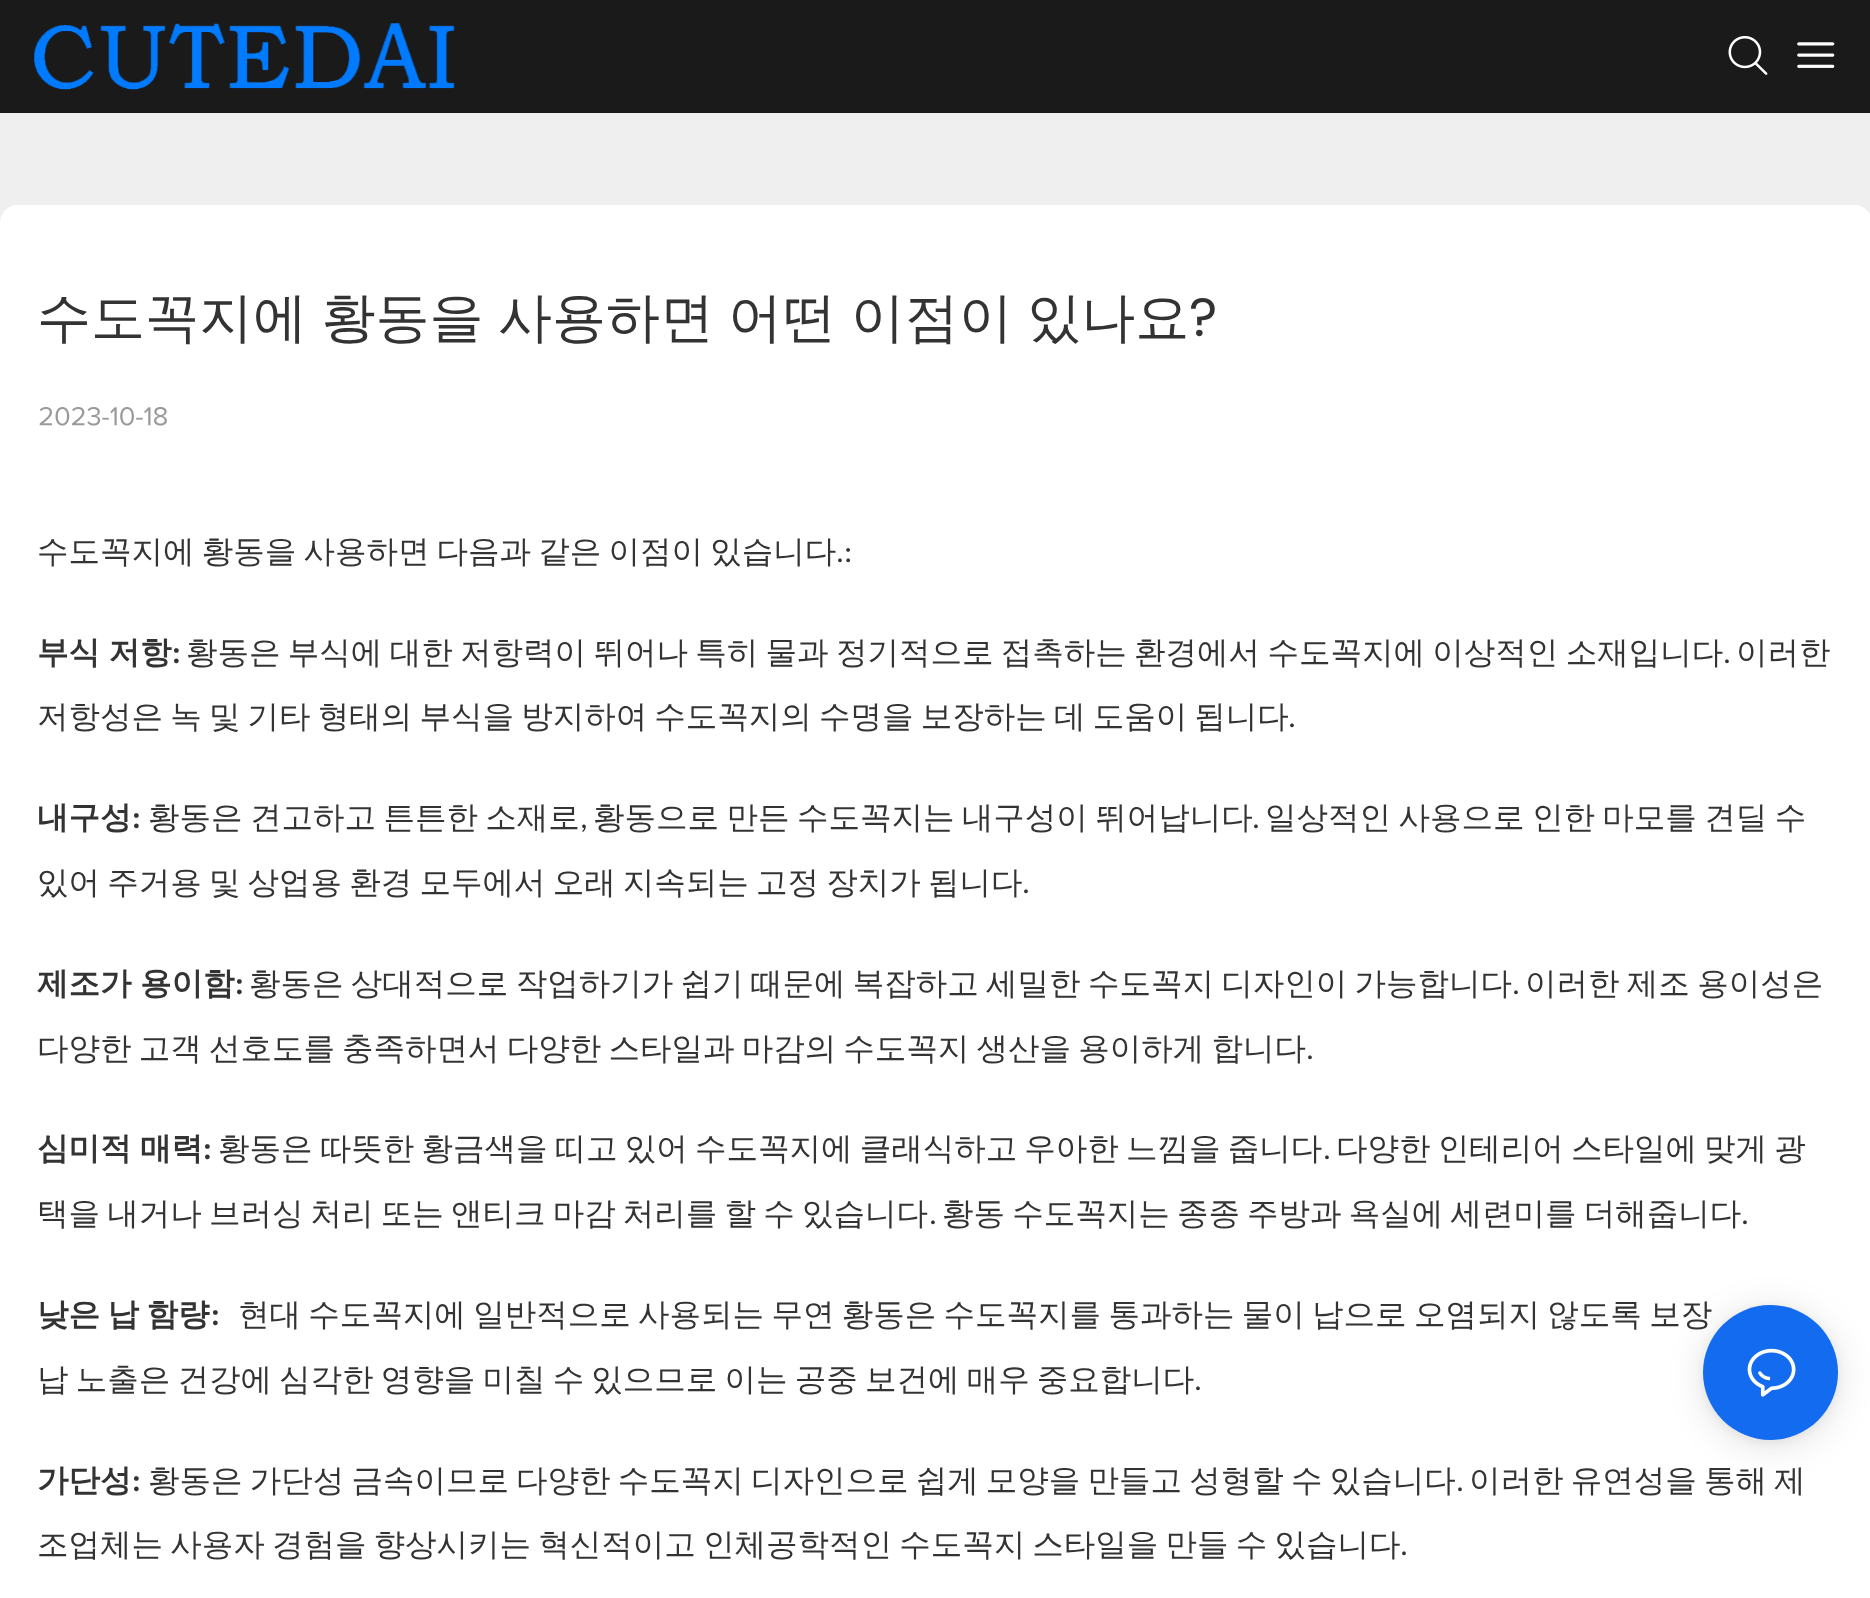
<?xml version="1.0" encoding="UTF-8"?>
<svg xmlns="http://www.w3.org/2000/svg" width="1870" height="1598">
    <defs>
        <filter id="blur1" x="-50%" y="-200%" width="200%" height="500%"><feGaussianBlur stdDeviation="18"/></filter>
        <filter id="blur2" x="-50%" y="-200%" width="200%" height="500%"><feGaussianBlur stdDeviation="4.5"/></filter>
    </defs>
    <rect width="100%" height="100%" fill="#EFEFEF"/>
    <rect x="0" y="0" width="1870" height="113" fill="#1A1A1A"/>
    <image x="34" y="23" width="421" height="67" href="img_01.png"/>
    <image x="1728" y="36" width="40" height="39" href="img_02.png"/>
    <image x="1797" y="42" width="38" height="26" href="img_03.png"/>
    <rect x="0" y="205" width="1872" height="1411" rx="18" fill="#FFFFFF"/>
    <text x="37" y="336" word-spacing="-1.75" font-family="WenQuanYi Zen Hei" font-size="54" font-weight="500" fill="#333333">수도꼭지에 황동을 사용하면 어떤 이점이 있나요</text>
    <text x="1189" y="336" font-family="Poppins" font-size="54" fill="#333333">?</text>
    <image x="39" y="407" width="128" height="19" href="img_04.png"/>
    <text x="37" y="562" word-spacing="-2.25" font-family="WenQuanYi Zen Hei" font-size="31.5" font-weight="500" fill="#333333">수도꼭지에 황동을 사용하면 다음과 같은 이점이 있습니다</text>
    <text x="836" y="562" font-family="Carlito" font-size="31.5" fill="#333333">.:</text>
    <text x="37" y="663" word-spacing="-1" font-family="WenQuanYi Zen Hei" font-size="31.5" font-weight="700" fill="#333333">부식 저항</text>
    <text x="172" y="663" font-family="Carlito" font-size="31.5" font-weight="700" fill="#333333">:</text>
    <text x="186" y="663" word-spacing="-2.1" font-family="WenQuanYi Zen Hei" font-size="31.5" font-weight="500" fill="#333333">황동은 부식에 대한 저항력이 뛰어나 특히 물과 정기적으로 접촉하는 환경에서 수도꼭지에 이상적인 소재입니다</text>
    <text x="1723" y="663" font-family="Carlito" font-size="31.5" fill="#333333">.</text>
    <text x="1736" y="663" font-family="WenQuanYi Zen Hei" font-size="31.5" font-weight="500" fill="#333333">이러한</text>
    <text x="37" y="727" word-spacing="-2.25" font-family="WenQuanYi Zen Hei" font-size="31.5" font-weight="500" fill="#333333">저항성은 녹 및 기타 형태의 부식을 방지하여 수도꼭지의 수명을 보장하는 데 도움이 됩니다</text>
    <text x="1288" y="727" font-family="Carlito" font-size="31.5" fill="#333333">.</text>
    <text x="37" y="828" font-family="WenQuanYi Zen Hei" font-size="31.5" font-weight="700" fill="#333333">내구성</text>
    <text x="132" y="828" font-family="Carlito" font-size="31.5" font-weight="700" fill="#333333">:</text>
    <text x="148" y="828" word-spacing="-2" font-family="WenQuanYi Zen Hei" font-size="31.5" font-weight="500" fill="#333333">황동은 견고하고 튼튼한 소재로</text>
    <text x="580" y="828" font-family="Carlito" font-size="31.5" fill="#333333">,</text>
    <text x="593" y="828" word-spacing="-2" font-family="WenQuanYi Zen Hei" font-size="31.5" font-weight="500" fill="#333333">황동으로 만든 수도꼭지는 내구성이 뛰어납니다</text>
    <text x="1252" y="828" font-family="Carlito" font-size="31.5" fill="#333333">.</text>
    <text x="1265" y="828" word-spacing="-2" font-family="WenQuanYi Zen Hei" font-size="31.5" font-weight="500" fill="#333333">일상적인 사용으로 인한 마모를 견딜 수</text>
    <text x="37" y="893" word-spacing="-2.25" font-family="WenQuanYi Zen Hei" font-size="31.5" font-weight="500" fill="#333333">있어 주거용 및 상업용 환경 모두에서 오래 지속되는 고정 장치가 됩니다</text>
    <text x="1022" y="893" font-family="Carlito" font-size="31.5" fill="#333333">.</text>
    <text x="37" y="994" word-spacing="-1" font-family="WenQuanYi Zen Hei" font-size="31.5" font-weight="700" fill="#333333">제조가 용이함</text>
    <text x="235" y="994" font-family="Carlito" font-size="31.5" font-weight="700" fill="#333333">:</text>
    <text x="249" y="994" word-spacing="-2.1" font-family="WenQuanYi Zen Hei" font-size="31.5" font-weight="500" fill="#333333">황동은 상대적으로 작업하기가 쉽기 때문에 복잡하고 세밀한 수도꼭지 디자인이 가능합니다</text>
    <text x="1512" y="994" font-family="Carlito" font-size="31.5" fill="#333333">.</text>
    <text x="1525" y="994" word-spacing="-2.1" font-family="WenQuanYi Zen Hei" font-size="31.5" font-weight="500" fill="#333333">이러한 제조 용이성은</text>
    <text x="37" y="1059" word-spacing="-2.25" font-family="WenQuanYi Zen Hei" font-size="31.5" font-weight="500" fill="#333333">다양한 고객 선호도를 충족하면서 다양한 스타일과 마감의 수도꼭지 생산을 용이하게 합니다</text>
    <text x="1306" y="1059" font-family="Carlito" font-size="31.5" fill="#333333">.</text>
    <text x="37" y="1159" word-spacing="-1" font-family="WenQuanYi Zen Hei" font-size="31.5" font-weight="700" fill="#333333">심미적 매력</text>
    <text x="203" y="1159" font-family="Carlito" font-size="31.5" font-weight="700" fill="#333333">:</text>
    <text x="218" y="1159" word-spacing="-2.25" font-family="WenQuanYi Zen Hei" font-size="31.5" font-weight="500" fill="#333333">황동은 따뜻한 황금색을 띠고 있어 수도꼭지에 클래식하고 우아한 느낌을 줍니다</text>
    <text x="1323" y="1159" font-family="Carlito" font-size="31.5" fill="#333333">.</text>
    <text x="1336" y="1159" word-spacing="-2.25" font-family="WenQuanYi Zen Hei" font-size="31.5" font-weight="500" fill="#333333">다양한 인테리어 스타일에 맞게 광</text>
    <text x="37" y="1224" word-spacing="-2.25" font-family="WenQuanYi Zen Hei" font-size="31.5" font-weight="500" fill="#333333">택을 내거나 브러싱 처리 또는 앤티크 마감 처리를 할 수 있습니다</text>
    <text x="929" y="1224" font-family="Carlito" font-size="31.5" fill="#333333">.</text>
    <text x="942" y="1224" word-spacing="-2.25" font-family="WenQuanYi Zen Hei" font-size="31.5" font-weight="500" fill="#333333">황동 수도꼭지는 종종 주방과 욕실에 세련미를 더해줍니다</text>
    <text x="1741" y="1224" font-family="Carlito" font-size="31.5" fill="#333333">.</text>
    <text x="37" y="1325" word-spacing="-2" font-family="WenQuanYi Zen Hei" font-size="31.5" font-weight="700" fill="#333333">낮은 납 함량</text>
    <text x="211" y="1325" font-family="Carlito" font-size="31.5" font-weight="700" fill="#333333">:</text>
    <text x="238" y="1325" word-spacing="-2.1" font-family="WenQuanYi Zen Hei" font-size="31.5" font-weight="500" fill="#333333">현대 수도꼭지에 일반적으로 사용되는 무연 황동은 수도꼭지를 통과하는 물이 납으로 오염되지 않도록 보장</text>
    <text x="37" y="1390" word-spacing="-2.25" font-family="WenQuanYi Zen Hei" font-size="31.5" font-weight="500" fill="#333333">납 노출은 건강에 심각한 영향을 미칠 수 있으므로 이는 공중 보건에 매우 중요합니다</text>
    <text x="1194" y="1390" font-family="Carlito" font-size="31.5" fill="#333333">.</text>
    <text x="37" y="1491" font-family="WenQuanYi Zen Hei" font-size="31.5" font-weight="700" fill="#333333">가단성</text>
    <text x="132" y="1491" font-family="Carlito" font-size="31.5" font-weight="700" fill="#333333">:</text>
    <text x="148" y="1491" word-spacing="-2.25" font-family="WenQuanYi Zen Hei" font-size="31.5" font-weight="500" fill="#333333">황동은 가단성 금속이므로 다양한 수도꼭지 디자인으로 쉽게 모양을 만들고 성형할 수 있습니다</text>
    <text x="1456" y="1491" font-family="Carlito" font-size="31.5" fill="#333333">.</text>
    <text x="1469" y="1491" word-spacing="-2.25" font-family="WenQuanYi Zen Hei" font-size="31.5" font-weight="500" fill="#333333">이러한 유연성을 통해 제</text>
    <text x="37" y="1555" word-spacing="-2.25" font-family="WenQuanYi Zen Hei" font-size="31.5" font-weight="500" fill="#333333">조업체는 사용자 경험을 향상시키는 혁신적이고 인체공학적인 수도꼭지 스타일을 만들 수 있습니다</text>
    <text x="1400" y="1555" font-family="Carlito" font-size="31.5" fill="#333333">.</text>
    <rect x="1703" y="1310" width="135" height="135" rx="67.5" fill="#000000" fill-opacity="0.12" filter="url(#blur1)"/>
    <rect x="1703" y="1307" width="135" height="135" rx="67.5" fill="#000000" fill-opacity="0.06" filter="url(#blur2)"/>
    <circle cx="1770.5" cy="1372.5" r="67.5" fill="#136BEF"/>
    <image x="1747" y="1348" width="49" height="49" href="img_05.png"/>
</svg>
